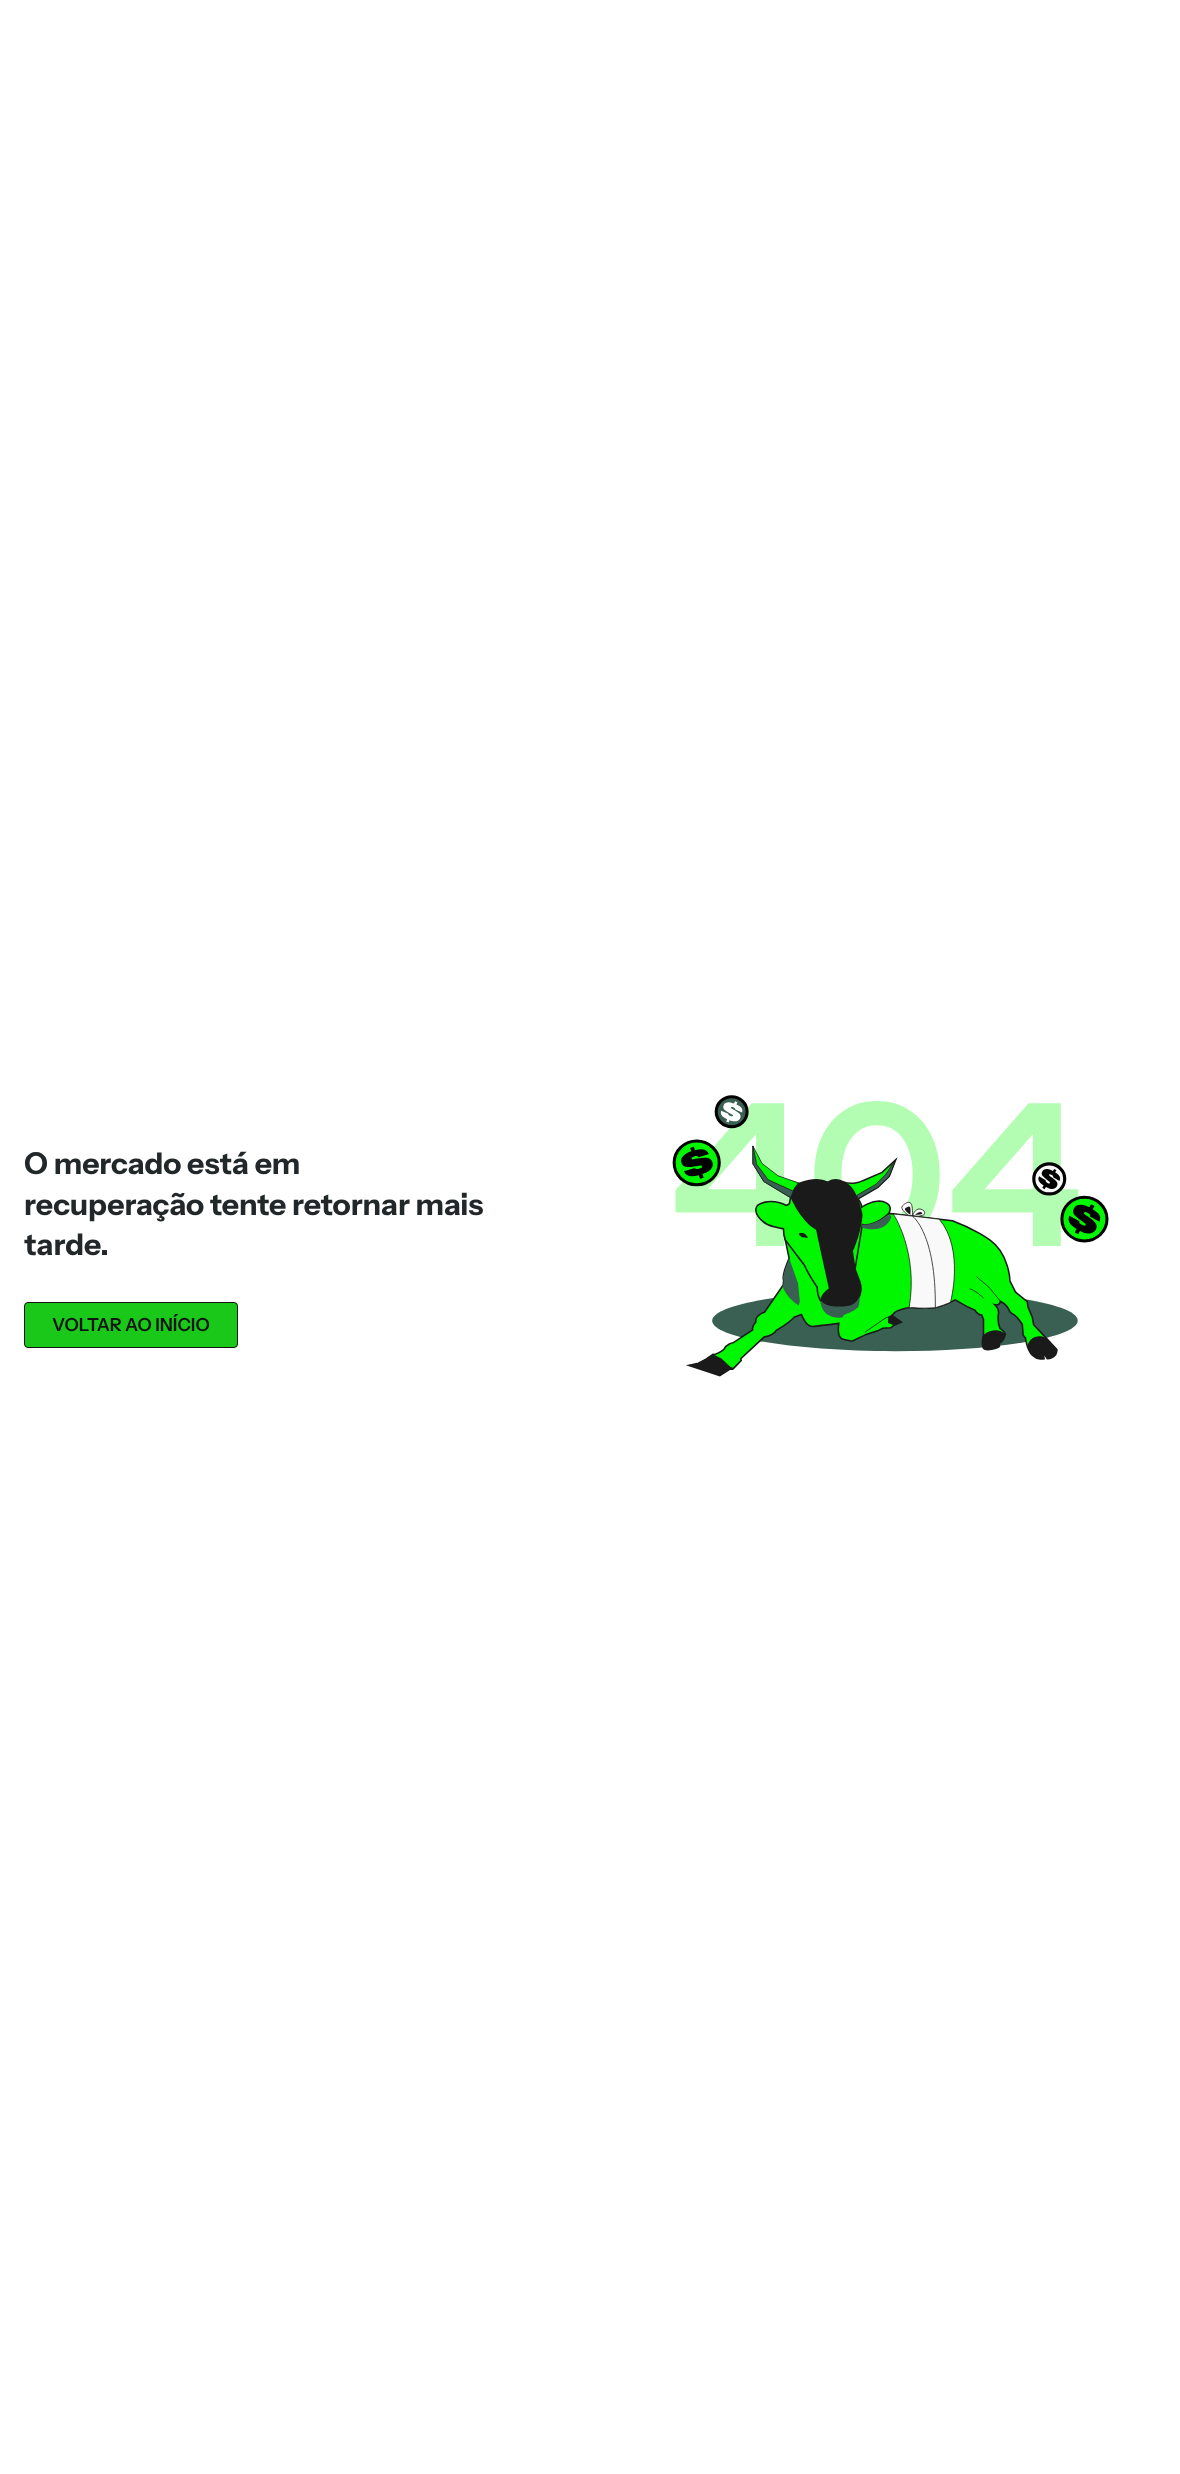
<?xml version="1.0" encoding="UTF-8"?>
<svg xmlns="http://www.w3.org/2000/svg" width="1180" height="2474">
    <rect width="100%" height="100%" fill="#FFFFFF"/>
    <text font-family="Instrument Sans" font-size="30" font-weight="700" fill="#222729">
        <tspan x="24" y="1174">O mercado está em</tspan>
        <tspan x="24" y="1215">recuperação tente retornar mais</tspan>
        <tspan x="24" y="1255">tarde.</tspan>
    </text>
    <image x="672" y="1095" width="437" height="282" href="img_01.png"/>
    <rect x="24.5" y="1302.5" width="213" height="45" rx="3.5" fill="#19C819" stroke="#131313"/>
    <text x="52" y="1331" font-family="Instrument Sans" font-size="18" font-weight="600" fill="#131313">VOLTAR AO INÍCIO</text>
</svg>
